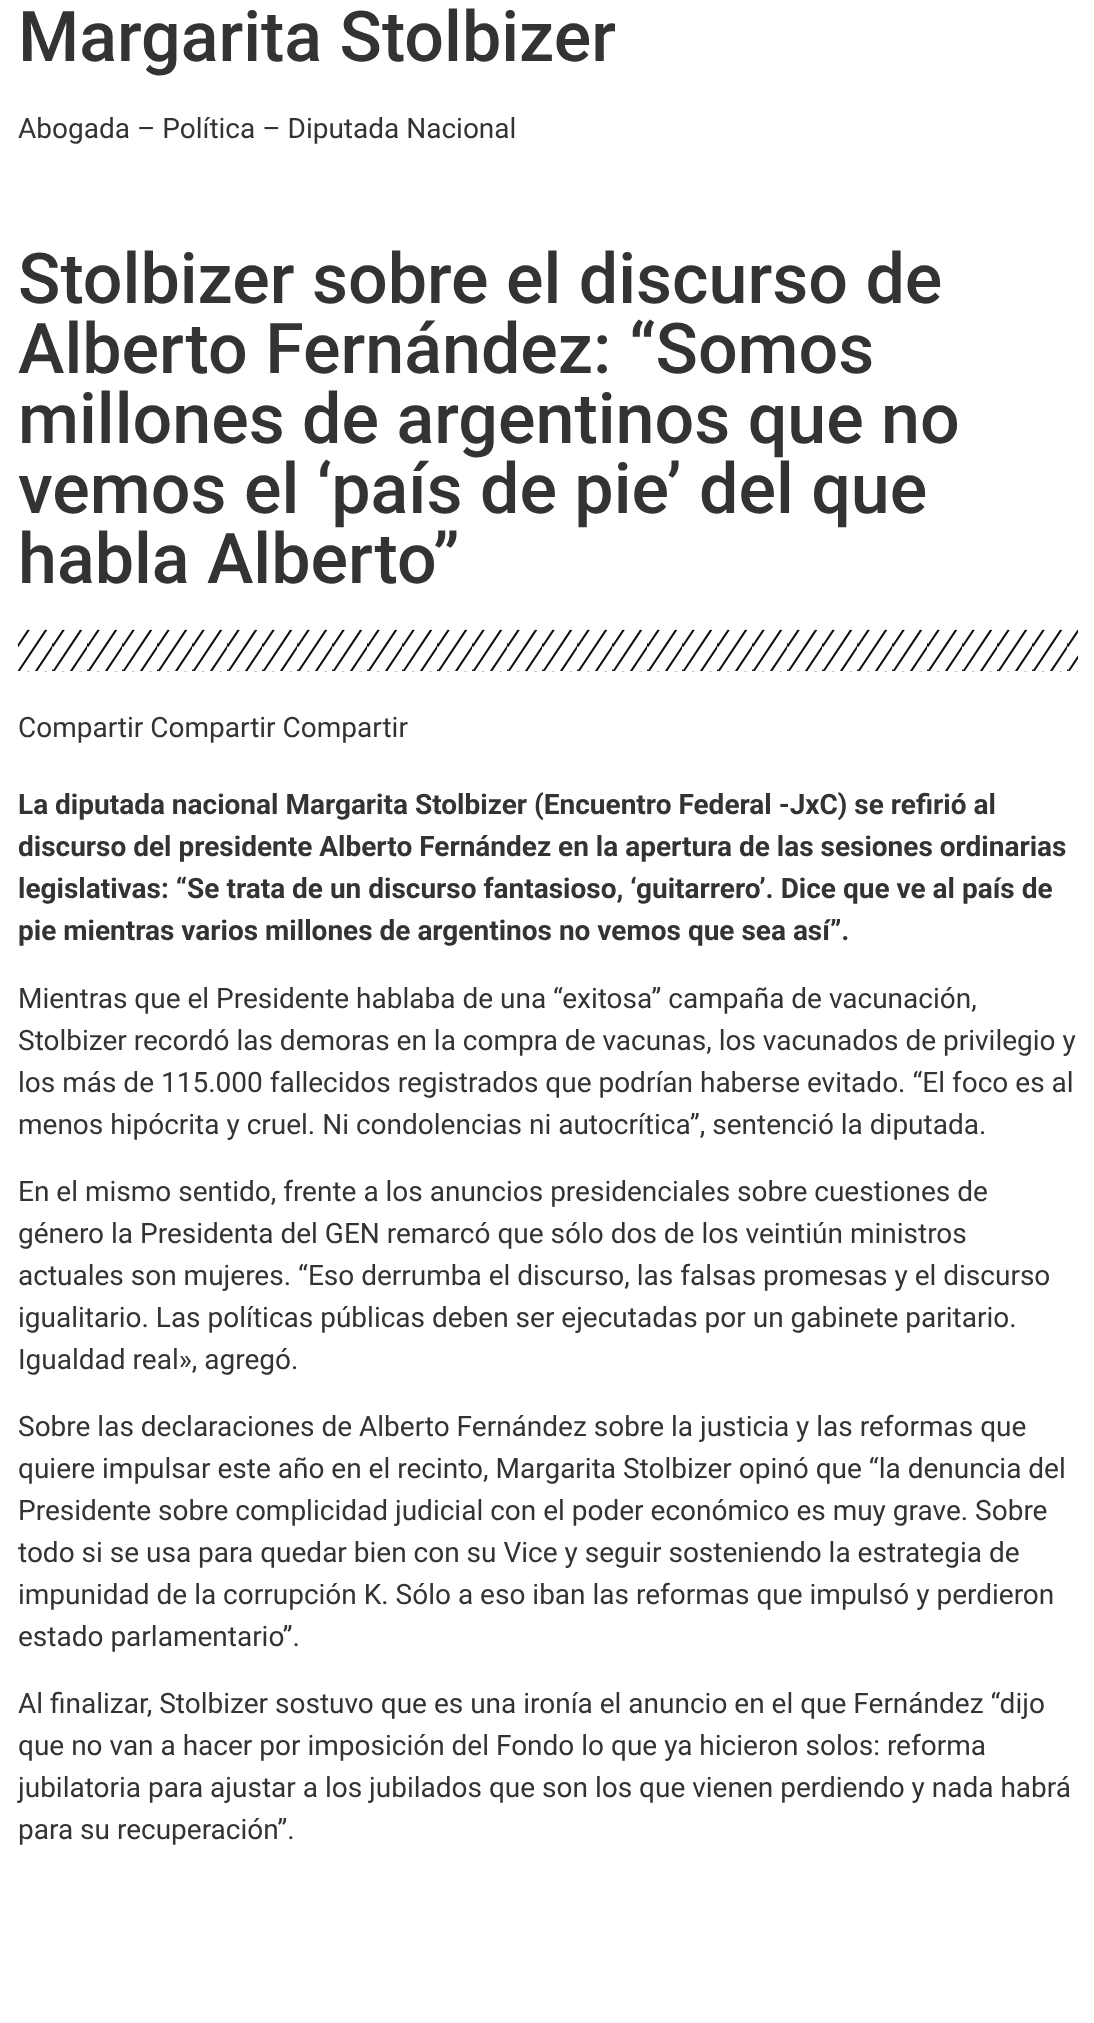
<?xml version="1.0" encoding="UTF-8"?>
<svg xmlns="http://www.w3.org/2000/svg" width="1094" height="2023">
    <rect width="100%" height="100%" fill="#FFFFFF"/>
    <text x="18" y="61" font-family="Roboto" font-size="70" font-weight="500" fill="#333333">Margarita Stolbizer</text>
    <text x="18" y="138" font-family="Roboto" font-size="28" fill="#333333">Abogada – Política – Diputada Nacional</text>
    <text font-family="Roboto" font-size="70" font-weight="500" fill="#333333">
        <tspan x="18" y="303">Stolbizer sobre el discurso de</tspan>
        <tspan x="18" y="373">Alberto Fernández: “Somos</tspan>
        <tspan x="18" y="443">millones de argentinos que no</tspan>
        <tspan x="18" y="513">vemos el ‘país de pie’ del que</tspan>
        <tspan x="18" y="583">habla Alberto”</tspan>
    </text>
    <image x="17" y="629" width="1061" height="43" href="img_01.png"/>
    <text x="18" y="737" font-family="Roboto" font-size="28" fill="#333333">Compartir Compartir Compartir</text>
    <text font-family="Roboto" font-size="28" font-weight="700" fill="#333333">
        <tspan x="18" y="814">La diputada nacional Margarita Stolbizer (Encuentro Federal -JxC) se refirió al</tspan>
        <tspan x="18" y="856">discurso del presidente Alberto Fernández en la apertura de las sesiones ordinarias</tspan>
        <tspan x="18" y="898">legislativas: “Se trata de un discurso fantasioso, ‘guitarrero’. Dice que ve al país de</tspan>
        <tspan x="18" y="940">pie mientras varios millones de argentinos no vemos que sea así”.</tspan>
    </text>
    <text font-family="Roboto" font-size="28" fill="#333333">
        <tspan x="18" y="1008">Mientras que el Presidente hablaba de una “exitosa” campaña de vacunación,</tspan>
        <tspan x="18" y="1050">Stolbizer recordó las demoras en la compra de vacunas, los vacunados de privilegio y</tspan>
        <tspan x="18" y="1092">los más de 115.000 fallecidos registrados que podrían haberse evitado. “El foco es al</tspan>
        <tspan x="18" y="1134">menos hipócrita y cruel. Ni condolencias ni autocrítica”, sentenció la diputada.</tspan>
    </text>
    <text font-family="Roboto" font-size="28" fill="#333333">
        <tspan x="18" y="1201">En el mismo sentido, frente a los anuncios presidenciales sobre cuestiones de</tspan>
        <tspan x="18" y="1243">género la Presidenta del GEN remarcó que sólo dos de los veintiún ministros</tspan>
        <tspan x="18" y="1285">actuales son mujeres. “Eso derrumba el discurso, las falsas promesas y el discurso</tspan>
        <tspan x="18" y="1327">igualitario. Las políticas públicas deben ser ejecutadas por un gabinete paritario.</tspan>
        <tspan x="18" y="1369">Igualdad real», agregó.</tspan>
    </text>
    <text font-family="Roboto" font-size="28" fill="#333333">
        <tspan x="18" y="1436">Sobre las declaraciones de Alberto Fernández sobre la justicia y las reformas que</tspan>
        <tspan x="18" y="1478">quiere impulsar este año en el recinto, Margarita Stolbizer opinó que “la denuncia del</tspan>
        <tspan x="18" y="1520">Presidente sobre complicidad judicial con el poder económico es muy grave. Sobre</tspan>
        <tspan x="18" y="1562">todo si se usa para quedar bien con su Vice y seguir sosteniendo la estrategia de</tspan>
        <tspan x="18" y="1604">impunidad de la corrupción K. Sólo a eso iban las reformas que impulsó y perdieron</tspan>
        <tspan x="18" y="1646">estado parlamentario”.</tspan>
    </text>
    <text font-family="Roboto" font-size="28" fill="#333333">
        <tspan x="18" y="1713">Al finalizar, Stolbizer sostuvo que es una ironía el anuncio en el que Fernández “dijo</tspan>
        <tspan x="18" y="1755">que no van a hacer por imposición del Fondo lo que ya hicieron solos: reforma</tspan>
        <tspan x="18" y="1797">jubilatoria para ajustar a los jubilados que son los que vienen perdiendo y nada habrá</tspan>
        <tspan x="18" y="1839">para su recuperación”.</tspan>
    </text>
</svg>
